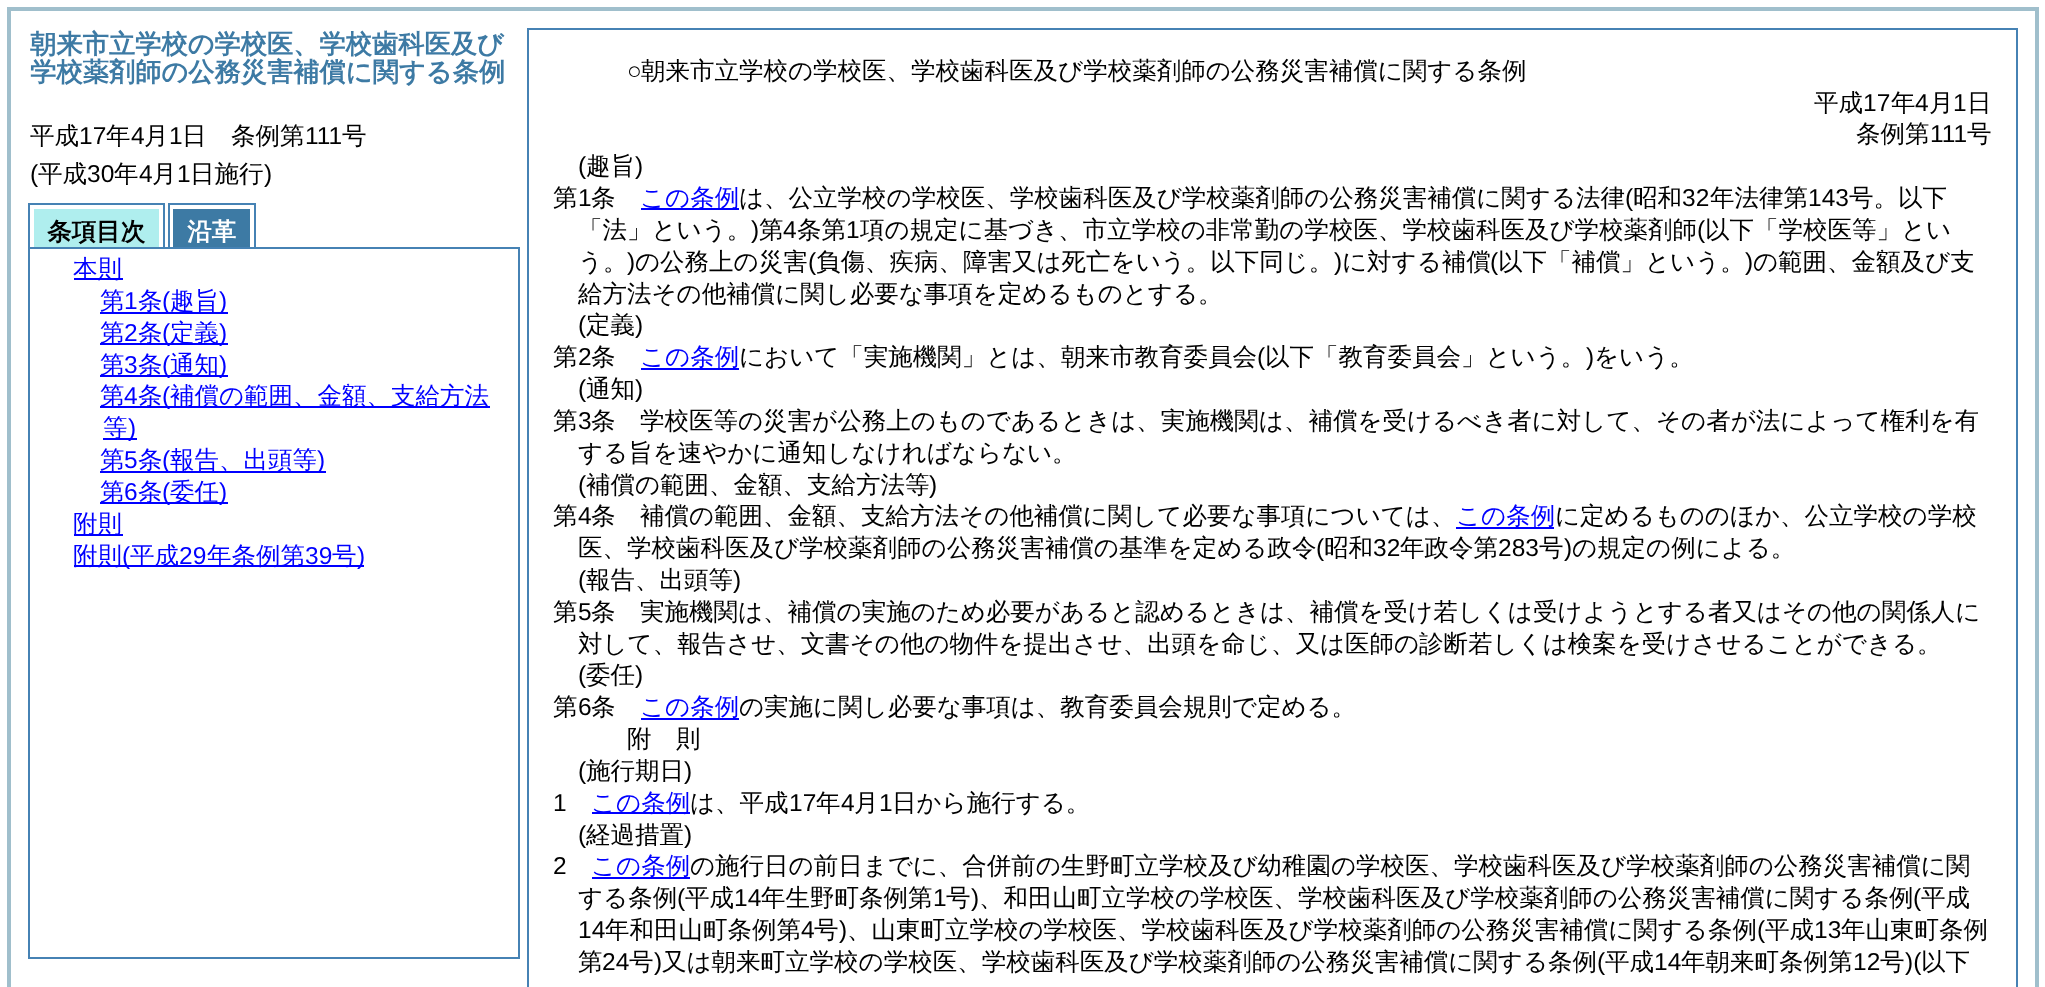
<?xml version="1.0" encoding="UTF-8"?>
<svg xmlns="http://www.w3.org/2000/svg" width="2045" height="987">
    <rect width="100%" height="100%" fill="#FFFFFF"/>
    <rect x="9" y="9" width="2028" height="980" fill="none" stroke="#A0BFCC" stroke-width="4"/>
    <text font-family="WenQuanYi Zen Hei" font-size="26.25" font-weight="700" fill="#3D7AA4">
        <tspan x="30" y="53">朝来市立学校の学校医、学校歯科医及び</tspan>
        <tspan x="30" y="81">学校薬剤師の公務災害補償に関する条例</tspan>
    </text>
    <text x="30" y="144" font-family="WenQuanYi Zen Hei" font-size="24.5" font-weight="500" fill="#000000">平成</text>
    <text x="79" y="144" font-family="Liberation Sans" font-size="24.5" fill="#000000">17</text>
    <text x="106" y="144" font-family="WenQuanYi Zen Hei" font-size="24.5" font-weight="500" fill="#000000">年</text>
    <text x="131" y="144" font-family="Liberation Sans" font-size="24.5" fill="#000000">4</text>
    <text x="144" y="144" font-family="WenQuanYi Zen Hei" font-size="24.5" font-weight="500" fill="#000000">月</text>
    <text x="169" y="144" font-family="Liberation Sans" font-size="24.5" fill="#000000">1</text>
    <text x="182" y="144" font-family="WenQuanYi Zen Hei" font-size="24.5" font-weight="500" fill="#000000">日　条例第</text>
    <text x="305" y="144" font-family="Liberation Sans" font-size="24.5" fill="#000000">111</text>
    <text x="342" y="144" font-family="WenQuanYi Zen Hei" font-size="24.5" font-weight="500" fill="#000000">号</text>
    <text x="30" y="182" font-family="Liberation Sans" font-size="24.5" fill="#000000">(</text>
    <text x="38" y="182" font-family="WenQuanYi Zen Hei" font-size="24.5" font-weight="500" fill="#000000">平成</text>
    <text x="87" y="182" font-family="Liberation Sans" font-size="24.5" fill="#000000">30</text>
    <text x="114" y="182" font-family="WenQuanYi Zen Hei" font-size="24.5" font-weight="500" fill="#000000">年</text>
    <text x="139" y="182" font-family="Liberation Sans" font-size="24.5" fill="#000000">4</text>
    <text x="152" y="182" font-family="WenQuanYi Zen Hei" font-size="24.5" font-weight="500" fill="#000000">月</text>
    <text x="177" y="182" font-family="Liberation Sans" font-size="24.5" fill="#000000">1</text>
    <text x="190" y="182" font-family="WenQuanYi Zen Hei" font-size="24.5" font-weight="500" fill="#000000">日施行</text>
    <text x="264" y="182" font-family="Liberation Sans" font-size="24.5" fill="#000000">)</text>
    <rect x="28" y="203" width="137" height="2" fill="#4682B4"/>
    <rect x="163" y="203" width="2" height="46" fill="#4682B4"/>
    <rect x="28" y="203" width="2" height="46" fill="#4682B4"/>
    <rect x="34" y="209" width="125" height="38" fill="#AFEEEE"/>
    <text x="47" y="240" font-family="WenQuanYi Zen Hei" font-size="24.5" font-weight="700" fill="#000000">条項目次</text>
    <rect x="168" y="203" width="88" height="2" fill="#4682B4"/>
    <rect x="254" y="203" width="2" height="46" fill="#4682B4"/>
    <rect x="168" y="203" width="2" height="46" fill="#4682B4"/>
    <rect x="173" y="209" width="77" height="38" fill="#3D7AA4"/>
    <text x="187" y="240" font-family="WenQuanYi Zen Hei" font-size="24.5" font-weight="700" fill="#FFFFFF">沿革</text>
    <rect x="29" y="248" width="490" height="710" fill="none" stroke="#4682B4" stroke-width="2"/>
    <rect x="74" y="278" width="49" height="2" fill="#0000FF"/>
    <text x="73" y="277" font-family="WenQuanYi Zen Hei" font-size="24.5" font-weight="500" fill="#0000FF">本則</text>
    <rect x="100" y="312" width="128" height="2" fill="#0000FF"/>
    <text x="100" y="309" font-family="WenQuanYi Zen Hei" font-size="24.5" font-weight="500" fill="#0000FF">第</text>
    <text x="124" y="309" font-family="Liberation Sans" font-size="24.5" fill="#0000FF">1</text>
    <text x="138" y="309" font-family="WenQuanYi Zen Hei" font-size="24.5" font-weight="500" fill="#0000FF">条</text>
    <text x="162" y="309" font-family="Liberation Sans" font-size="24.5" fill="#0000FF">(</text>
    <text x="170" y="309" font-family="WenQuanYi Zen Hei" font-size="24.5" font-weight="500" fill="#0000FF">趣旨</text>
    <text x="219" y="309" font-family="Liberation Sans" font-size="24.5" fill="#0000FF">)</text>
    <rect x="100" y="343" width="128" height="2" fill="#0000FF"/>
    <text x="100" y="341" font-family="WenQuanYi Zen Hei" font-size="24.5" font-weight="500" fill="#0000FF">第</text>
    <text x="124" y="341" font-family="Liberation Sans" font-size="24.5" fill="#0000FF">2</text>
    <text x="138" y="341" font-family="WenQuanYi Zen Hei" font-size="24.5" font-weight="500" fill="#0000FF">条</text>
    <text x="162" y="341" font-family="Liberation Sans" font-size="24.5" fill="#0000FF">(</text>
    <text x="170" y="341" font-family="WenQuanYi Zen Hei" font-size="24.5" font-weight="500" fill="#0000FF">定義</text>
    <text x="219" y="341" font-family="Liberation Sans" font-size="24.5" fill="#0000FF">)</text>
    <rect x="100" y="375" width="128" height="2" fill="#0000FF"/>
    <text x="100" y="373" font-family="WenQuanYi Zen Hei" font-size="24.5" font-weight="500" fill="#0000FF">第</text>
    <text x="124" y="373" font-family="Liberation Sans" font-size="24.5" fill="#0000FF">3</text>
    <text x="138" y="373" font-family="WenQuanYi Zen Hei" font-size="24.5" font-weight="500" fill="#0000FF">条</text>
    <text x="162" y="373" font-family="Liberation Sans" font-size="24.5" fill="#0000FF">(</text>
    <text x="170" y="373" font-family="WenQuanYi Zen Hei" font-size="24.5" font-weight="500" fill="#0000FF">通知</text>
    <text x="219" y="373" font-family="Liberation Sans" font-size="24.5" fill="#0000FF">)</text>
    <rect x="100" y="406" width="390" height="2" fill="#0000FF"/>
    <text x="100" y="404" font-family="WenQuanYi Zen Hei" font-size="24.5" font-weight="500" fill="#0000FF">第</text>
    <text x="124" y="404" font-family="Liberation Sans" font-size="24.5" fill="#0000FF">4</text>
    <text x="138" y="404" font-family="WenQuanYi Zen Hei" font-size="24.5" font-weight="500" fill="#0000FF">条</text>
    <text x="162" y="404" font-family="Liberation Sans" font-size="24.5" fill="#0000FF">(</text>
    <text x="170" y="404" font-family="WenQuanYi Zen Hei" font-size="24.5" font-weight="500" fill="#0000FF">補償の範囲、金額、支給方法</text>
    <rect x="103" y="438" width="34" height="2" fill="#0000FF"/>
    <text x="103" y="436" font-family="WenQuanYi Zen Hei" font-size="24.5" font-weight="500" fill="#0000FF">等</text>
    <text x="128" y="436" font-family="Liberation Sans" font-size="24.5" fill="#0000FF">)</text>
    <rect x="100" y="471" width="226" height="2" fill="#0000FF"/>
    <text x="100" y="468" font-family="WenQuanYi Zen Hei" font-size="24.5" font-weight="500" fill="#0000FF">第</text>
    <text x="124" y="468" font-family="Liberation Sans" font-size="24.5" fill="#0000FF">5</text>
    <text x="138" y="468" font-family="WenQuanYi Zen Hei" font-size="24.5" font-weight="500" fill="#0000FF">条</text>
    <text x="162" y="468" font-family="Liberation Sans" font-size="24.5" fill="#0000FF">(</text>
    <text x="170" y="468" font-family="WenQuanYi Zen Hei" font-size="24.5" font-weight="500" fill="#0000FF">報告、出頭等</text>
    <text x="317" y="468" font-family="Liberation Sans" font-size="24.5" fill="#0000FF">)</text>
    <rect x="100" y="502" width="128" height="2" fill="#0000FF"/>
    <text x="100" y="500" font-family="WenQuanYi Zen Hei" font-size="24.5" font-weight="500" fill="#0000FF">第</text>
    <text x="124" y="500" font-family="Liberation Sans" font-size="24.5" fill="#0000FF">6</text>
    <text x="138" y="500" font-family="WenQuanYi Zen Hei" font-size="24.5" font-weight="500" fill="#0000FF">条</text>
    <text x="162" y="500" font-family="Liberation Sans" font-size="24.5" fill="#0000FF">(</text>
    <text x="170" y="500" font-family="WenQuanYi Zen Hei" font-size="24.5" font-weight="500" fill="#0000FF">委任</text>
    <text x="219" y="500" font-family="Liberation Sans" font-size="24.5" fill="#0000FF">)</text>
    <rect x="74" y="534" width="49" height="2" fill="#0000FF"/>
    <text x="73" y="532" font-family="WenQuanYi Zen Hei" font-size="24.5" font-weight="500" fill="#0000FF">附則</text>
    <rect x="74" y="565" width="290" height="2" fill="#0000FF"/>
    <text x="73" y="564" font-family="WenQuanYi Zen Hei" font-size="24.5" font-weight="500" fill="#0000FF">附則</text>
    <text x="122" y="564" font-family="Liberation Sans" font-size="24.5" fill="#0000FF">(</text>
    <text x="130" y="564" font-family="WenQuanYi Zen Hei" font-size="24.5" font-weight="500" fill="#0000FF">平成</text>
    <text x="179" y="564" font-family="Liberation Sans" font-size="24.5" fill="#0000FF">29</text>
    <text x="207" y="564" font-family="WenQuanYi Zen Hei" font-size="24.5" font-weight="500" fill="#0000FF">年条例第</text>
    <text x="305" y="564" font-family="Liberation Sans" font-size="24.5" fill="#0000FF">39</text>
    <text x="332" y="564" font-family="WenQuanYi Zen Hei" font-size="24.5" font-weight="500" fill="#0000FF">号</text>
    <text x="357" y="564" font-family="Liberation Sans" font-size="24.5" fill="#0000FF">)</text>
    <rect x="528" y="29" width="1489" height="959" fill="none" stroke="#4682B4" stroke-width="2"/>
    <text x="627" y="79" font-family="Liberation Sans" font-size="24.5" fill="#000000">○</text>
    <text x="641" y="79" font-family="WenQuanYi Zen Hei" font-size="24.5" font-weight="500" fill="#000000">朝来市立学校の学校医、学校歯科医及び学校薬剤師の公務災害補償に関する条例</text>
    <text x="1814" y="111" font-family="WenQuanYi Zen Hei" font-size="24.5" font-weight="500" fill="#000000">平成</text>
    <text x="1863" y="111" font-family="Liberation Sans" font-size="24.5" fill="#000000">17</text>
    <text x="1891" y="111" font-family="WenQuanYi Zen Hei" font-size="24.5" font-weight="500" fill="#000000">年</text>
    <text x="1915" y="111" font-family="Liberation Sans" font-size="24.5" fill="#000000">4</text>
    <text x="1929" y="111" font-family="WenQuanYi Zen Hei" font-size="24.5" font-weight="500" fill="#000000">月</text>
    <text x="1953" y="111" font-family="Liberation Sans" font-size="24.5" fill="#000000">1</text>
    <text x="1967" y="111" font-family="WenQuanYi Zen Hei" font-size="24.5" font-weight="500" fill="#000000">日</text>
    <text x="1856" y="142" font-family="WenQuanYi Zen Hei" font-size="24.5" font-weight="500" fill="#000000">条例第</text>
    <text x="1930" y="142" font-family="Liberation Sans" font-size="24.5" fill="#000000">111</text>
    <text x="1967" y="142" font-family="WenQuanYi Zen Hei" font-size="24.5" font-weight="500" fill="#000000">号</text>
    <text x="578" y="174" font-family="Liberation Sans" font-size="24.5" fill="#000000">(</text>
    <text x="586" y="174" font-family="WenQuanYi Zen Hei" font-size="24.5" font-weight="500" fill="#000000">趣旨</text>
    <text x="635" y="174" font-family="Liberation Sans" font-size="24.5" fill="#000000">)</text>
    <text x="553" y="206" font-family="WenQuanYi Zen Hei" font-size="24.5" font-weight="500" fill="#000000">第</text>
    <text x="578" y="206" font-family="Liberation Sans" font-size="24.5" fill="#000000">1</text>
    <text x="591" y="206" font-family="WenQuanYi Zen Hei" font-size="24.5" font-weight="500" fill="#000000">条</text>
    <rect x="641" y="208" width="98" height="2" fill="#0000FF"/>
    <text x="640" y="206" font-family="WenQuanYi Zen Hei" font-size="24.5" font-weight="500" fill="#0000FF">この条例</text>
    <text x="739" y="206" font-family="WenQuanYi Zen Hei" font-size="24.5" font-weight="500" fill="#000000">は、公立学校の学校医、学校歯科医及び学校薬剤師の公務災害補償に関する法律</text>
    <text x="1625" y="206" font-family="Liberation Sans" font-size="24.5" fill="#000000">(</text>
    <text x="1633" y="206" font-family="WenQuanYi Zen Hei" font-size="24.5" font-weight="500" fill="#000000">昭和</text>
    <text x="1682" y="206" font-family="Liberation Sans" font-size="24.5" fill="#000000">32</text>
    <text x="1710" y="206" font-family="WenQuanYi Zen Hei" font-size="24.5" font-weight="500" fill="#000000">年法律第</text>
    <text x="1808" y="206" font-family="Liberation Sans" font-size="24.5" fill="#000000">143</text>
    <text x="1849" y="206" font-family="WenQuanYi Zen Hei" font-size="24.5" font-weight="500" fill="#000000">号。以下</text>
    <text x="578" y="238" font-family="WenQuanYi Zen Hei" font-size="24.5" font-weight="500" fill="#000000">「法」という。</text>
    <text x="751" y="238" font-family="Liberation Sans" font-size="24.5" fill="#000000">)</text>
    <text x="759" y="238" font-family="WenQuanYi Zen Hei" font-size="24.5" font-weight="500" fill="#000000">第</text>
    <text x="783" y="238" font-family="Liberation Sans" font-size="24.5" fill="#000000">4</text>
    <text x="797" y="238" font-family="WenQuanYi Zen Hei" font-size="24.5" font-weight="500" fill="#000000">条第</text>
    <text x="846" y="238" font-family="Liberation Sans" font-size="24.5" fill="#000000">1</text>
    <text x="860" y="238" font-family="WenQuanYi Zen Hei" font-size="24.5" font-weight="500" fill="#000000">項の規定に基づき、市立学校の非常勤の学校医、学校歯科医及び学校薬剤師</text>
    <text x="1697" y="238" font-family="Liberation Sans" font-size="24.5" fill="#000000">(</text>
    <text x="1705" y="238" font-family="WenQuanYi Zen Hei" font-size="24.5" font-weight="500" fill="#000000">以下「学校医等」とい</text>
    <text x="578" y="270" font-family="WenQuanYi Zen Hei" font-size="24.5" font-weight="500" fill="#000000">う。</text>
    <text x="627" y="270" font-family="Liberation Sans" font-size="24.5" fill="#000000">)</text>
    <text x="635" y="270" font-family="WenQuanYi Zen Hei" font-size="24.5" font-weight="500" fill="#000000">の公務上の災害</text>
    <text x="808" y="270" font-family="Liberation Sans" font-size="24.5" fill="#000000">(</text>
    <text x="816" y="270" font-family="WenQuanYi Zen Hei" font-size="24.5" font-weight="500" fill="#000000">負傷、疾病、障害又は死亡をいう。以下同じ。</text>
    <text x="1334" y="270" font-family="Liberation Sans" font-size="24.5" fill="#000000">)</text>
    <text x="1342" y="270" font-family="WenQuanYi Zen Hei" font-size="24.5" font-weight="500" fill="#000000">に対する補償</text>
    <text x="1490" y="270" font-family="Liberation Sans" font-size="24.5" fill="#000000">(</text>
    <text x="1498" y="270" font-family="WenQuanYi Zen Hei" font-size="24.5" font-weight="500" fill="#000000">以下「補償」という。</text>
    <text x="1745" y="270" font-family="Liberation Sans" font-size="24.5" fill="#000000">)</text>
    <text x="1753" y="270" font-family="WenQuanYi Zen Hei" font-size="24.5" font-weight="500" fill="#000000">の範囲、金額及び支</text>
    <text x="578" y="302" font-family="WenQuanYi Zen Hei" font-size="24.5" font-weight="500" fill="#000000">給方法その他補償に関し必要な事項を定めるものとする。</text>
    <text x="578" y="333" font-family="Liberation Sans" font-size="24.5" fill="#000000">(</text>
    <text x="586" y="333" font-family="WenQuanYi Zen Hei" font-size="24.5" font-weight="500" fill="#000000">定義</text>
    <text x="635" y="333" font-family="Liberation Sans" font-size="24.5" fill="#000000">)</text>
    <text x="553" y="365" font-family="WenQuanYi Zen Hei" font-size="24.5" font-weight="500" fill="#000000">第</text>
    <text x="578" y="365" font-family="Liberation Sans" font-size="24.5" fill="#000000">2</text>
    <text x="591" y="365" font-family="WenQuanYi Zen Hei" font-size="24.5" font-weight="500" fill="#000000">条</text>
    <rect x="641" y="368" width="98" height="2" fill="#0000FF"/>
    <text x="640" y="365" font-family="WenQuanYi Zen Hei" font-size="24.5" font-weight="500" fill="#0000FF">この条例</text>
    <text x="739" y="365" font-family="WenQuanYi Zen Hei" font-size="24.5" font-weight="500" fill="#000000">において「実施機関」とは、朝来市教育委員会</text>
    <text x="1257" y="365" font-family="Liberation Sans" font-size="24.5" fill="#000000">(</text>
    <text x="1265" y="365" font-family="WenQuanYi Zen Hei" font-size="24.5" font-weight="500" fill="#000000">以下「教育委員会」という。</text>
    <text x="1586" y="365" font-family="Liberation Sans" font-size="24.5" fill="#000000">)</text>
    <text x="1594" y="365" font-family="WenQuanYi Zen Hei" font-size="24.5" font-weight="500" fill="#000000">をいう。</text>
    <text x="578" y="397" font-family="Liberation Sans" font-size="24.5" fill="#000000">(</text>
    <text x="586" y="397" font-family="WenQuanYi Zen Hei" font-size="24.5" font-weight="500" fill="#000000">通知</text>
    <text x="635" y="397" font-family="Liberation Sans" font-size="24.5" fill="#000000">)</text>
    <text x="553" y="429" font-family="WenQuanYi Zen Hei" font-size="24.5" font-weight="500" fill="#000000">第</text>
    <text x="578" y="429" font-family="Liberation Sans" font-size="24.5" fill="#000000">3</text>
    <text x="591" y="429" font-family="WenQuanYi Zen Hei" font-size="24.5" font-weight="500" fill="#000000">条</text>
    <text x="640" y="429" font-family="WenQuanYi Zen Hei" font-size="24.5" font-weight="500" fill="#000000">学校医等の災害が公務上のものであるときは、実施機関は、補償を受けるべき者に対して、その者が法によって権利を有</text>
    <text x="578" y="461" font-family="WenQuanYi Zen Hei" font-size="24.5" font-weight="500" fill="#000000">する旨を速やかに通知しなければならない。</text>
    <text x="578" y="493" font-family="Liberation Sans" font-size="24.5" fill="#000000">(</text>
    <text x="586" y="493" font-family="WenQuanYi Zen Hei" font-size="24.5" font-weight="500" fill="#000000">補償の範囲、金額、支給方法等</text>
    <text x="929" y="493" font-family="Liberation Sans" font-size="24.5" fill="#000000">)</text>
    <text x="553" y="524" font-family="WenQuanYi Zen Hei" font-size="24.5" font-weight="500" fill="#000000">第</text>
    <text x="578" y="524" font-family="Liberation Sans" font-size="24.5" fill="#000000">4</text>
    <text x="591" y="524" font-family="WenQuanYi Zen Hei" font-size="24.5" font-weight="500" fill="#000000">条</text>
    <text x="640" y="524" font-family="WenQuanYi Zen Hei" font-size="24.5" font-weight="500" fill="#000000">補償の範囲、金額、支給方法その他補償に関して必要な事項については、</text>
    <rect x="1456" y="527" width="98" height="2" fill="#0000FF"/>
    <text x="1456" y="524" font-family="WenQuanYi Zen Hei" font-size="24.5" font-weight="500" fill="#0000FF">この条例</text>
    <text x="1555" y="524" font-family="WenQuanYi Zen Hei" font-size="24.5" font-weight="500" fill="#000000">に定めるもののほか、公立学校の学校</text>
    <text x="578" y="556" font-family="WenQuanYi Zen Hei" font-size="24.5" font-weight="500" fill="#000000">医、学校歯科医及び学校薬剤師の公務災害補償の基準を定める政令</text>
    <text x="1316" y="556" font-family="Liberation Sans" font-size="24.5" fill="#000000">(</text>
    <text x="1324" y="556" font-family="WenQuanYi Zen Hei" font-size="24.5" font-weight="500" fill="#000000">昭和</text>
    <text x="1373" y="556" font-family="Liberation Sans" font-size="24.5" fill="#000000">32</text>
    <text x="1400" y="556" font-family="WenQuanYi Zen Hei" font-size="24.5" font-weight="500" fill="#000000">年政令第</text>
    <text x="1498" y="556" font-family="Liberation Sans" font-size="24.5" fill="#000000">283</text>
    <text x="1539" y="556" font-family="WenQuanYi Zen Hei" font-size="24.5" font-weight="500" fill="#000000">号</text>
    <text x="1564" y="556" font-family="Liberation Sans" font-size="24.5" fill="#000000">)</text>
    <text x="1572" y="556" font-family="WenQuanYi Zen Hei" font-size="24.5" font-weight="500" fill="#000000">の規定の例による。</text>
    <text x="578" y="588" font-family="Liberation Sans" font-size="24.5" fill="#000000">(</text>
    <text x="586" y="588" font-family="WenQuanYi Zen Hei" font-size="24.5" font-weight="500" fill="#000000">報告、出頭等</text>
    <text x="733" y="588" font-family="Liberation Sans" font-size="24.5" fill="#000000">)</text>
    <text x="553" y="620" font-family="WenQuanYi Zen Hei" font-size="24.5" font-weight="500" fill="#000000">第</text>
    <text x="578" y="620" font-family="Liberation Sans" font-size="24.5" fill="#000000">5</text>
    <text x="591" y="620" font-family="WenQuanYi Zen Hei" font-size="24.5" font-weight="500" fill="#000000">条</text>
    <text x="640" y="620" font-family="WenQuanYi Zen Hei" font-size="24.5" font-weight="500" fill="#000000">実施機関は、補償の実施のため必要があると認めるときは、補償を受け若しくは受けようとする者又はその他の関係人に</text>
    <text x="578" y="652" font-family="WenQuanYi Zen Hei" font-size="24.5" font-weight="500" fill="#000000">対して、報告させ、文書その他の物件を提出させ、出頭を命じ、又は医師の診断若しくは検案を受けさせることができる。</text>
    <text x="578" y="683" font-family="Liberation Sans" font-size="24.5" fill="#000000">(</text>
    <text x="586" y="683" font-family="WenQuanYi Zen Hei" font-size="24.5" font-weight="500" fill="#000000">委任</text>
    <text x="635" y="683" font-family="Liberation Sans" font-size="24.5" fill="#000000">)</text>
    <text x="553" y="715" font-family="WenQuanYi Zen Hei" font-size="24.5" font-weight="500" fill="#000000">第</text>
    <text x="578" y="715" font-family="Liberation Sans" font-size="24.5" fill="#000000">6</text>
    <text x="591" y="715" font-family="WenQuanYi Zen Hei" font-size="24.5" font-weight="500" fill="#000000">条</text>
    <rect x="641" y="718" width="98" height="2" fill="#0000FF"/>
    <text x="640" y="715" font-family="WenQuanYi Zen Hei" font-size="24.5" font-weight="500" fill="#0000FF">この条例</text>
    <text x="739" y="715" font-family="WenQuanYi Zen Hei" font-size="24.5" font-weight="500" fill="#000000">の実施に関し必要な事項は、教育委員会規則で定める。</text>
    <text x="627" y="747" font-family="WenQuanYi Zen Hei" font-size="24.5" font-weight="500" letter-spacing="25" fill="#000000">附</text>
    <text x="676" y="747" font-family="WenQuanYi Zen Hei" font-size="24.5" font-weight="500" fill="#000000">則</text>
    <text x="578" y="779" font-family="Liberation Sans" font-size="24.5" fill="#000000">(</text>
    <text x="586" y="779" font-family="WenQuanYi Zen Hei" font-size="24.5" font-weight="500" fill="#000000">施行期日</text>
    <text x="684" y="779" font-family="Liberation Sans" font-size="24.5" fill="#000000">)</text>
    <text x="553" y="811" font-family="Liberation Sans" font-size="24.5" fill="#000000">1</text>
    <rect x="592" y="812" width="98" height="2" fill="#0000FF"/>
    <text x="591" y="811" font-family="WenQuanYi Zen Hei" font-size="24.5" font-weight="500" fill="#0000FF">この条例</text>
    <text x="690" y="811" font-family="WenQuanYi Zen Hei" font-size="24.5" font-weight="500" fill="#000000">は、平成</text>
    <text x="789" y="811" font-family="Liberation Sans" font-size="24.5" fill="#000000">17</text>
    <text x="816" y="811" font-family="WenQuanYi Zen Hei" font-size="24.5" font-weight="500" fill="#000000">年</text>
    <text x="841" y="811" font-family="Liberation Sans" font-size="24.5" fill="#000000">4</text>
    <text x="854" y="811" font-family="WenQuanYi Zen Hei" font-size="24.5" font-weight="500" fill="#000000">月</text>
    <text x="879" y="811" font-family="Liberation Sans" font-size="24.5" fill="#000000">1</text>
    <text x="892" y="811" font-family="WenQuanYi Zen Hei" font-size="24.5" font-weight="500" fill="#000000">日から施行する。</text>
    <text x="578" y="843" font-family="Liberation Sans" font-size="24.5" fill="#000000">(</text>
    <text x="586" y="843" font-family="WenQuanYi Zen Hei" font-size="24.5" font-weight="500" fill="#000000">経過措置</text>
    <text x="684" y="843" font-family="Liberation Sans" font-size="24.5" fill="#000000">)</text>
    <text x="553" y="874" font-family="Liberation Sans" font-size="24.5" fill="#000000">2</text>
    <rect x="592" y="877" width="98" height="2" fill="#0000FF"/>
    <text x="591" y="874" font-family="WenQuanYi Zen Hei" font-size="24.5" font-weight="500" fill="#0000FF">この条例</text>
    <text x="690" y="874" font-family="WenQuanYi Zen Hei" font-size="24.5" font-weight="500" fill="#000000">の施行日の前日までに、合併前の生野町立学校及び幼稚園の学校医、学校歯科医及び学校薬剤師の公務災害補償に関</text>
    <text x="578" y="906" font-family="WenQuanYi Zen Hei" font-size="24.5" font-weight="500" fill="#000000">する条例</text>
    <text x="677" y="906" font-family="Liberation Sans" font-size="24.5" fill="#000000">(</text>
    <text x="685" y="906" font-family="WenQuanYi Zen Hei" font-size="24.5" font-weight="500" fill="#000000">平成</text>
    <text x="734" y="906" font-family="Liberation Sans" font-size="24.5" fill="#000000">14</text>
    <text x="761" y="906" font-family="WenQuanYi Zen Hei" font-size="24.5" font-weight="500" fill="#000000">年生野町条例第</text>
    <text x="933" y="906" font-family="Liberation Sans" font-size="24.5" fill="#000000">1</text>
    <text x="946" y="906" font-family="WenQuanYi Zen Hei" font-size="24.5" font-weight="500" fill="#000000">号</text>
    <text x="971" y="906" font-family="Liberation Sans" font-size="24.5" fill="#000000">)</text>
    <text x="979" y="906" font-family="WenQuanYi Zen Hei" font-size="24.5" font-weight="500" fill="#000000">、和田山町立学校の学校医、学校歯科医及び学校薬剤師の公務災害補償に関する条例</text>
    <text x="1913" y="906" font-family="Liberation Sans" font-size="24.5" fill="#000000">(</text>
    <text x="1921" y="906" font-family="WenQuanYi Zen Hei" font-size="24.5" font-weight="500" fill="#000000">平成</text>
    <text x="578" y="938" font-family="Liberation Sans" font-size="24.5" fill="#000000">14</text>
    <text x="605" y="938" font-family="WenQuanYi Zen Hei" font-size="24.5" font-weight="500" fill="#000000">年和田山町条例第</text>
    <text x="801" y="938" font-family="Liberation Sans" font-size="24.5" fill="#000000">4</text>
    <text x="814" y="938" font-family="WenQuanYi Zen Hei" font-size="24.5" font-weight="500" fill="#000000">号</text>
    <text x="839" y="938" font-family="Liberation Sans" font-size="24.5" fill="#000000">)</text>
    <text x="847" y="938" font-family="WenQuanYi Zen Hei" font-size="24.5" font-weight="500" fill="#000000">、山東町立学校の学校医、学校歯科医及び学校薬剤師の公務災害補償に関する条例</text>
    <text x="1757" y="938" font-family="Liberation Sans" font-size="24.5" fill="#000000">(</text>
    <text x="1765" y="938" font-family="WenQuanYi Zen Hei" font-size="24.5" font-weight="500" fill="#000000">平成</text>
    <text x="1814" y="938" font-family="Liberation Sans" font-size="24.5" fill="#000000">13</text>
    <text x="1841" y="938" font-family="WenQuanYi Zen Hei" font-size="24.5" font-weight="500" fill="#000000">年山東町条例</text>
    <text x="578" y="970" font-family="WenQuanYi Zen Hei" font-size="24.5" font-weight="500" fill="#000000">第</text>
    <text x="602" y="970" font-family="Liberation Sans" font-size="24.5" fill="#000000">24</text>
    <text x="629" y="970" font-family="WenQuanYi Zen Hei" font-size="24.5" font-weight="500" fill="#000000">号</text>
    <text x="654" y="970" font-family="Liberation Sans" font-size="24.5" fill="#000000">)</text>
    <text x="662" y="970" font-family="WenQuanYi Zen Hei" font-size="24.5" font-weight="500" fill="#000000">又は朝来町立学校の学校医、学校歯科医及び学校薬剤師の公務災害補償に関する条例</text>
    <text x="1597" y="970" font-family="Liberation Sans" font-size="24.5" fill="#000000">(</text>
    <text x="1605" y="970" font-family="WenQuanYi Zen Hei" font-size="24.5" font-weight="500" fill="#000000">平成</text>
    <text x="1654" y="970" font-family="Liberation Sans" font-size="24.5" fill="#000000">14</text>
    <text x="1681" y="970" font-family="WenQuanYi Zen Hei" font-size="24.5" font-weight="500" fill="#000000">年朝来町条例第</text>
    <text x="1853" y="970" font-family="Liberation Sans" font-size="24.5" fill="#000000">12</text>
    <text x="1880" y="970" font-family="WenQuanYi Zen Hei" font-size="24.5" font-weight="500" fill="#000000">号</text>
    <text x="1905" y="970" font-family="Liberation Sans" font-size="24.5" fill="#000000">)(</text>
    <text x="1921" y="970" font-family="WenQuanYi Zen Hei" font-size="24.5" font-weight="500" fill="#000000">以下</text>
</svg>
